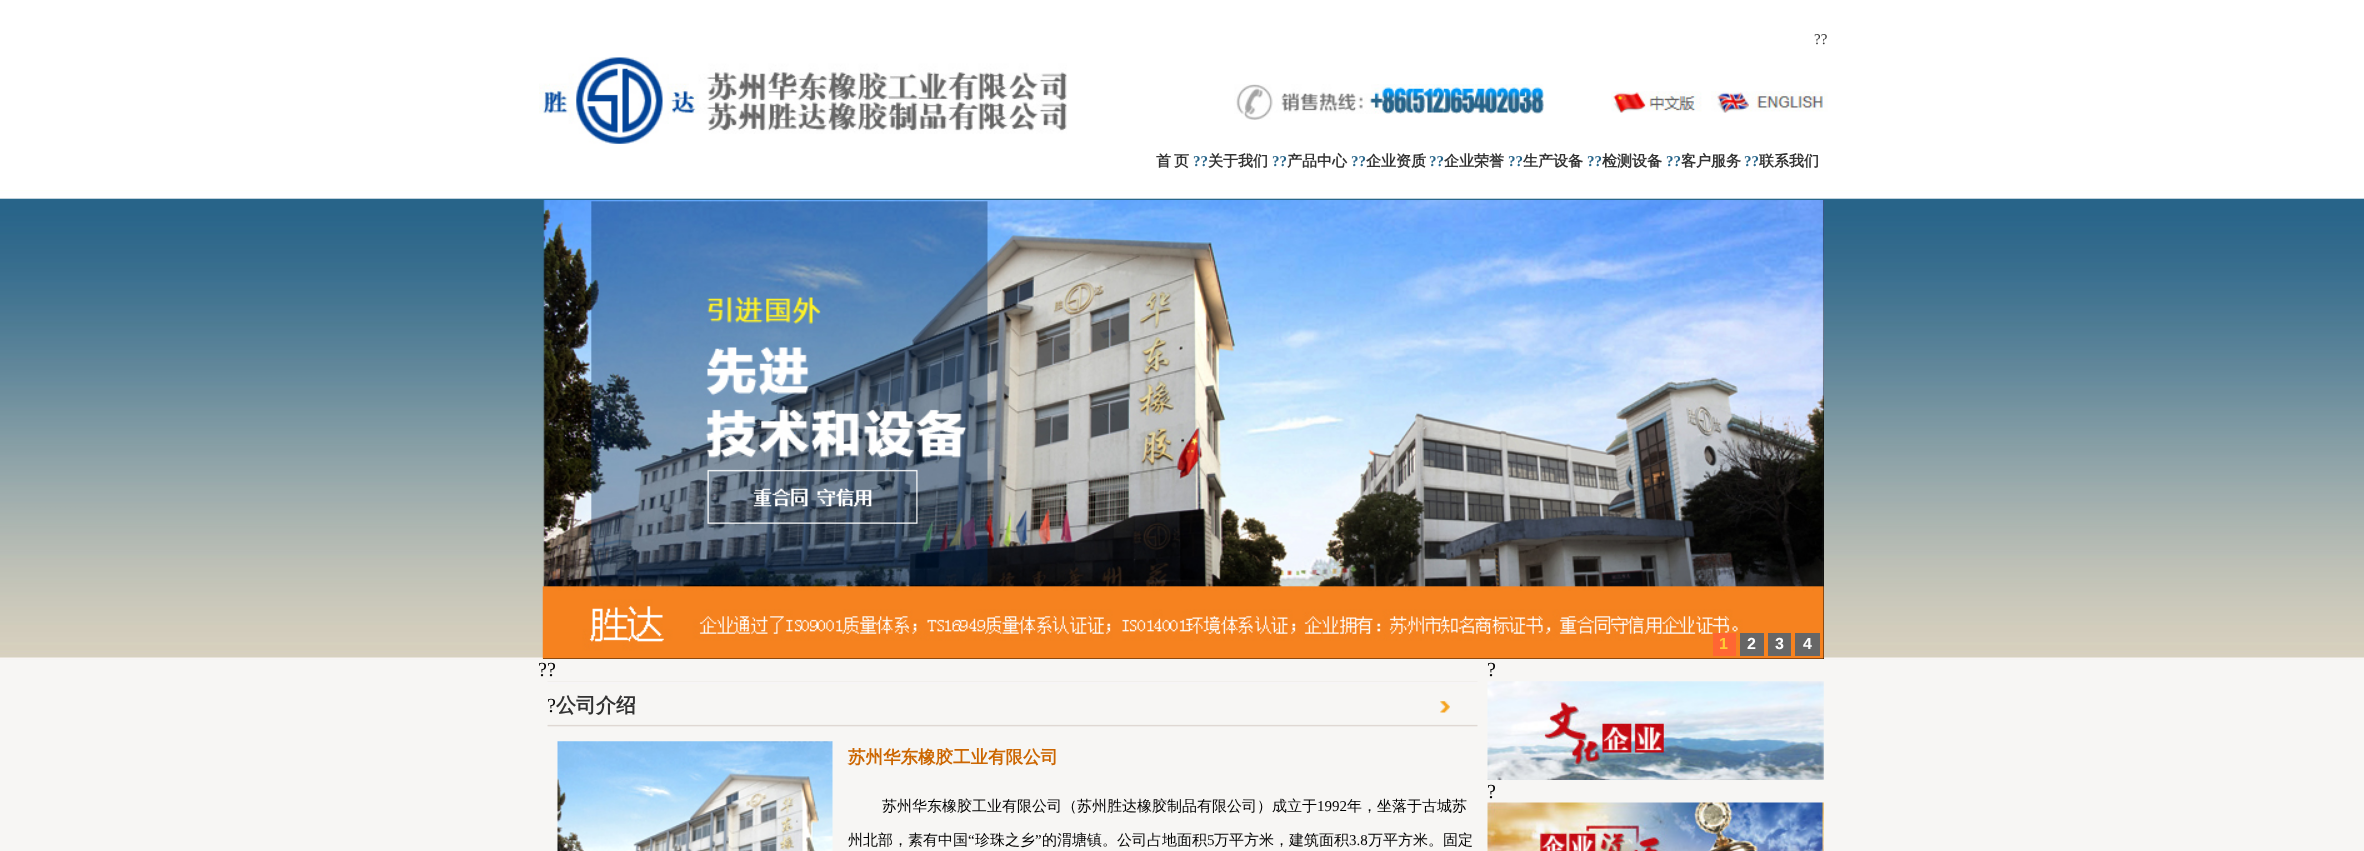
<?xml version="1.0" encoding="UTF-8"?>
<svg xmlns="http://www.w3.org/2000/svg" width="2364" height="851">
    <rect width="100%" height="100%" fill="#FFFFFF"/>
    <image x="0" y="190" width="2364" height="661" href="img_01.png"/>
    <text x="1814" y="44" font-family="Liberation Serif" font-size="15" fill="#333333">??</text>
    <image x="539" y="57" width="528" height="87" href="img_02.png"/>
    <image x="1234" y="84" width="310" height="36" href="img_03.png"/>
    <image x="1611" y="91" width="217" height="22" href="img_04.png"/>
    <text x="1156" y="166" font-family="WenQuanYi Zen Hei" font-size="15" font-weight="700" fill="#333333">首</text>
    <text x="1174" y="166" font-family="WenQuanYi Zen Hei" font-size="15" font-weight="700" fill="#333333">页</text>
    <text x="1193" y="166" font-family="Liberation Serif" font-size="15" font-weight="700" fill="#27658A">??</text>
    <text x="1208" y="166" font-family="WenQuanYi Zen Hei" font-size="15" font-weight="700" fill="#333333">关于我们</text>
    <text x="1272" y="166" font-family="Liberation Serif" font-size="15" font-weight="700" fill="#27658A">??</text>
    <text x="1287" y="166" font-family="WenQuanYi Zen Hei" font-size="15" font-weight="700" fill="#333333">产品中心</text>
    <text x="1351" y="166" font-family="Liberation Serif" font-size="15" font-weight="700" fill="#27658A">??</text>
    <text x="1366" y="166" font-family="WenQuanYi Zen Hei" font-size="15" font-weight="700" fill="#333333">企业资质</text>
    <text x="1429" y="166" font-family="Liberation Serif" font-size="15" font-weight="700" fill="#27658A">??</text>
    <text x="1444" y="166" font-family="WenQuanYi Zen Hei" font-size="15" font-weight="700" fill="#333333">企业荣誉</text>
    <text x="1508" y="166" font-family="Liberation Serif" font-size="15" font-weight="700" fill="#27658A">??</text>
    <text x="1523" y="166" font-family="WenQuanYi Zen Hei" font-size="15" font-weight="700" fill="#333333">生产设备</text>
    <text x="1587" y="166" font-family="Liberation Serif" font-size="15" font-weight="700" fill="#27658A">??</text>
    <text x="1602" y="166" font-family="WenQuanYi Zen Hei" font-size="15" font-weight="700" fill="#333333">检测设备</text>
    <text x="1666" y="166" font-family="Liberation Serif" font-size="15" font-weight="700" fill="#27658A">??</text>
    <text x="1681" y="166" font-family="WenQuanYi Zen Hei" font-size="15" font-weight="700" fill="#333333">客户服务</text>
    <text x="1744" y="166" font-family="Liberation Serif" font-size="15" font-weight="700" fill="#27658A">??</text>
    <text x="1759" y="166" font-family="WenQuanYi Zen Hei" font-size="15" font-weight="700" fill="#333333">联系我们</text>
    <rect x="543" y="200" width="1281" height="459" fill="#000000"/>
    <image x="542" y="200" width="1282" height="459" href="img_05.png"/>
    <rect x="1713" y="633" width="23" height="23" fill="#FF6633"/>
    <text x="1719" y="649" font-family="Liberation Sans" font-size="16" font-weight="700" fill="#FFCC33">1</text>
    <rect x="1740" y="633" width="24" height="23" fill="#666666"/>
    <text x="1747" y="649" font-family="Liberation Sans" font-size="16" font-weight="700" fill="#FFFFFF">2</text>
    <rect x="1768" y="633" width="23" height="23" fill="#666666"/>
    <text x="1775" y="649" font-family="Liberation Sans" font-size="16" font-weight="700" fill="#FFFFFF">3</text>
    <rect x="1795" y="633" width="25" height="23" fill="#666666"/>
    <text x="1803" y="649" font-family="Liberation Sans" font-size="16" font-weight="700" fill="#FFFFFF">4</text>
    <text x="538" y="676" font-family="Liberation Serif" font-size="20" fill="#000000">??</text>
    <image x="547" y="681" width="931" height="46" href="img_06.png"/>
    <text x="547" y="712" font-family="Liberation Serif" font-size="20" fill="#000000">?</text>
    <text x="556" y="712" font-family="WenQuanYi Zen Hei" font-size="20" font-weight="700" fill="#333333">公司介绍</text>
    <image x="1440" y="701" width="10" height="12" href="img_07.png"/>
    <image x="557" y="741" width="276" height="110" href="img_08.png"/>
    <text x="848" y="763" font-family="WenQuanYi Zen Hei" font-size="17.5" font-weight="700" fill="#CC6600">苏州华东橡胶工业有限公司</text>
    <text x="882" y="811" font-family="WenQuanYi Zen Hei" font-size="15" font-weight="500" fill="#000000">苏州华东橡胶工业有限公司（苏州胜达橡胶制品有限公司）成立于</text>
    <text x="1317" y="811" font-family="Liberation Serif" font-size="15" fill="#000000">1992</text>
    <text x="1347" y="811" font-family="WenQuanYi Zen Hei" font-size="15" font-weight="500" fill="#000000">年，坐落于古城苏</text>
    <text x="848" y="845" font-family="WenQuanYi Zen Hei" font-size="15" font-weight="500" fill="#000000">州北部，素有中国</text>
    <text x="968" y="845" font-family="Liberation Serif" font-size="15" fill="#000000">“</text>
    <text x="975" y="845" font-family="WenQuanYi Zen Hei" font-size="15" font-weight="500" fill="#000000">珍珠之乡</text>
    <text x="1035" y="845" font-family="Liberation Serif" font-size="15" fill="#000000">”</text>
    <text x="1042" y="845" font-family="WenQuanYi Zen Hei" font-size="15" font-weight="500" fill="#000000">的渭塘镇。公司占地面积</text>
    <text x="1207" y="845" font-family="Liberation Serif" font-size="15" fill="#000000">5</text>
    <text x="1214" y="845" font-family="WenQuanYi Zen Hei" font-size="15" font-weight="500" fill="#000000">万平方米，建筑面积</text>
    <text x="1349" y="845" font-family="Liberation Serif" font-size="15" fill="#000000">3.8</text>
    <text x="1368" y="845" font-family="WenQuanYi Zen Hei" font-size="15" font-weight="500" fill="#000000">万平方米。固定</text>
    <text x="1487" y="676" font-family="Liberation Serif" font-size="20" fill="#000000">?</text>
    <image x="1487" y="681" width="337" height="99" href="img_09.png"/>
    <text x="1487" y="798" font-family="Liberation Serif" font-size="20" fill="#000000">?</text>
    <image x="1487" y="802" width="337" height="49" href="img_10.png"/>
</svg>
